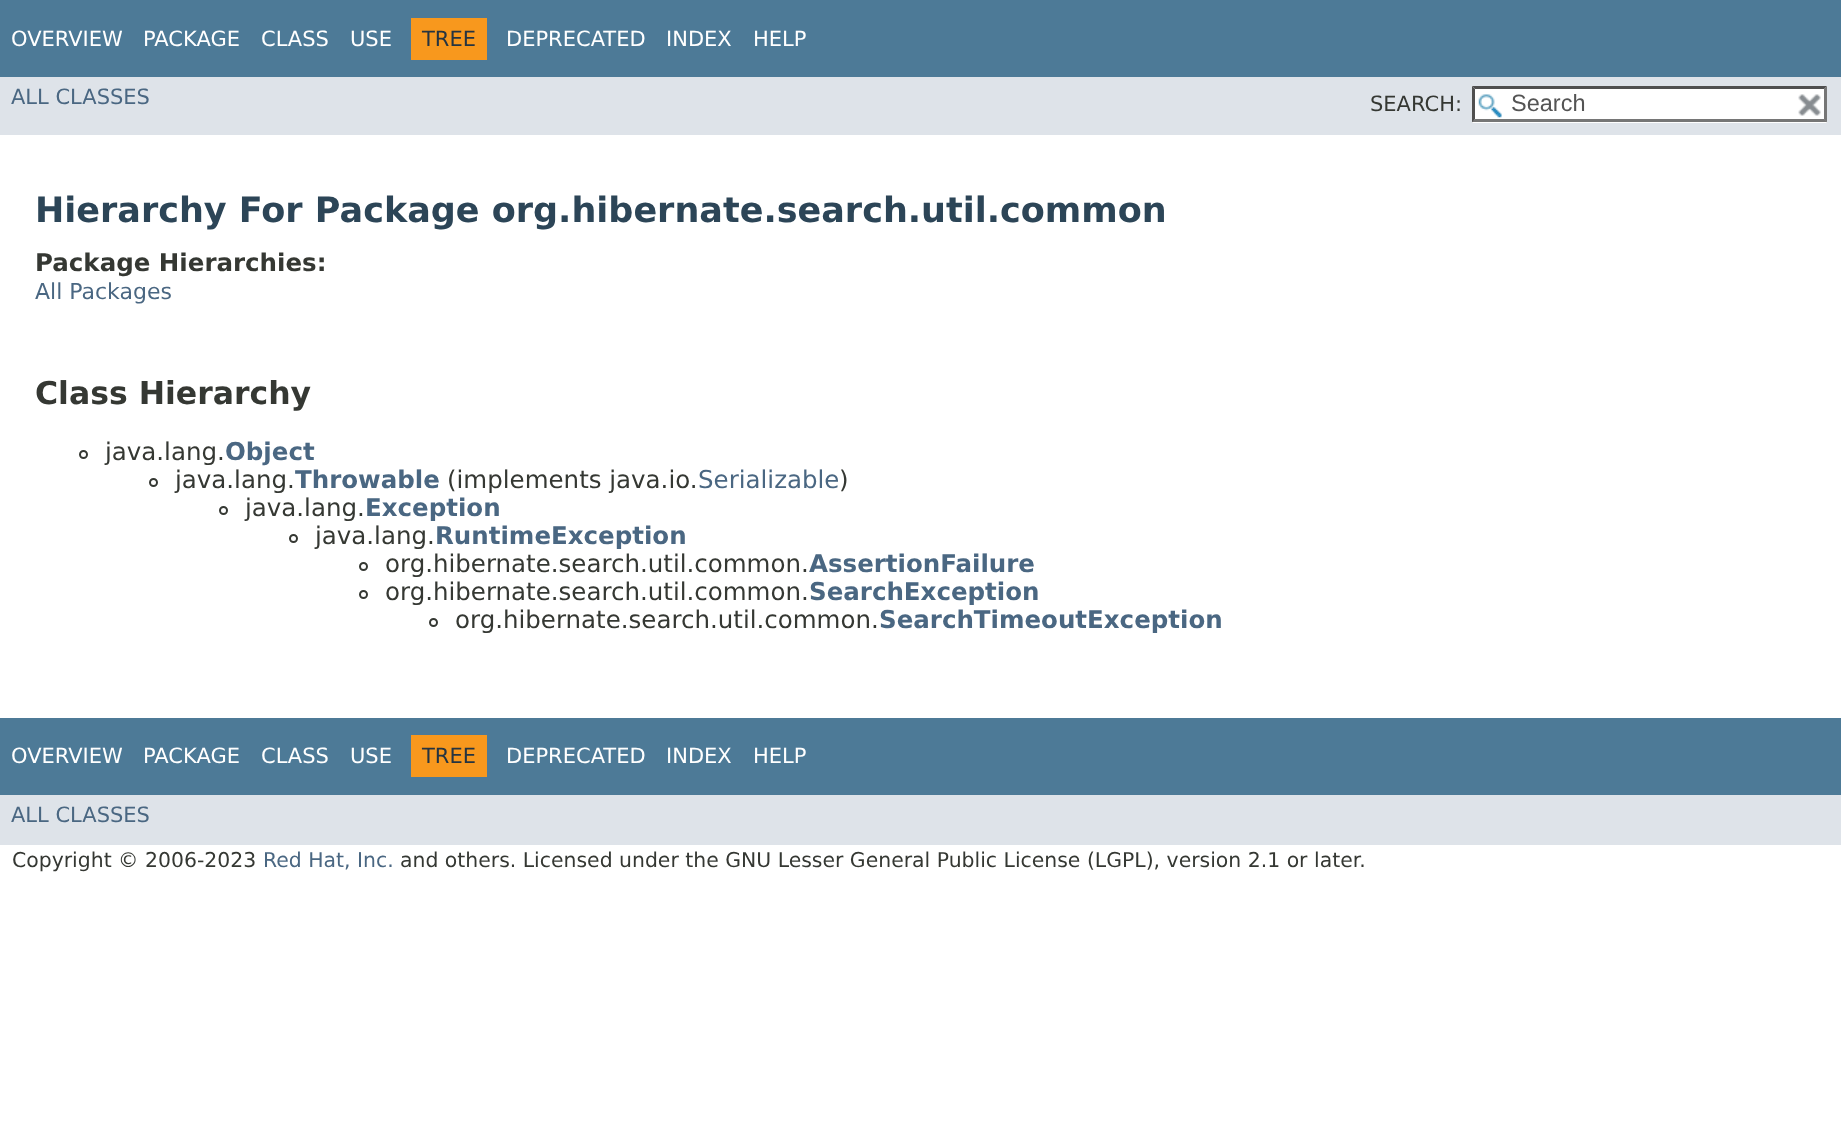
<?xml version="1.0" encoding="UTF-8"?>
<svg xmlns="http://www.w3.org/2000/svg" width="1841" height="1124">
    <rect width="100%" height="100%" fill="#FFFFFF"/>
    <rect x="0" y="0" width="1841" height="77" fill="#4D7A97"/>
    <text x="11" y="46" font-family="DejaVu Sans" font-size="21" fill="#FFFFFF">OVERVIEW</text>
    <text x="143" y="46" font-family="DejaVu Sans" font-size="21" fill="#FFFFFF">PACKAGE</text>
    <text x="261" y="46" font-family="DejaVu Sans" font-size="21" fill="#FFFFFF">CLASS</text>
    <text x="350" y="46" font-family="DejaVu Sans" font-size="21" fill="#FFFFFF">USE</text>
    <rect x="411" y="18" width="76" height="42" fill="#F8981D"/>
    <text x="422" y="46" font-family="DejaVu Sans" font-size="21" fill="#253441">TREE</text>
    <text x="506" y="46" font-family="DejaVu Sans" font-size="21" fill="#FFFFFF">DEPRECATED</text>
    <text x="666" y="46" font-family="DejaVu Sans" font-size="21" fill="#FFFFFF">INDEX</text>
    <text x="753" y="46" font-family="DejaVu Sans" font-size="21" fill="#FFFFFF">HELP</text>
    <rect x="0" y="77" width="1841" height="58" fill="#DEE3E9"/>
    <text x="11" y="104" font-family="DejaVu Sans" font-size="21" fill="#4A6782">ALL CLASSES</text>
    <text x="1370" y="111" font-family="DejaVu Sans" font-size="21" fill="#353833">SEARCH:</text>
    <rect x="1472" y="86" width="355" height="37" fill="#FFFFFF"/>
    <image x="1478" y="94" width="24" height="24" href="img_01.png"/>
    <path d="M 1472 86 H 1827 L 1824 89 H 1475 Z" fill="#4F4F4F"/>
    <path d="M 1827 86 V 122.5 L 1823.5 119 V 89 Z" fill="#767676"/>
    <path d="M 1827 122 H 1472 L 1475 119 H 1824 Z" fill="#767676"/>
    <path d="M 1472 122.5 V 86 L 1475 89 V 119 Z" fill="#4F4F4F"/>
    <text x="1511" y="111" font-family="Liberation Sans" font-size="23.5" fill="#545454">Search</text>
    <rect x="1823" y="89" width="1" height="30" fill="#FFFFFF"/>
    <image x="1798" y="94" width="23" height="22" href="img_02.png"/>
    <text x="35" y="222" font-family="DejaVu Sans" font-size="35" font-weight="700" fill="#2C4557">Hierarchy For Package org.hibernate.search.util.common</text>
    <text x="35" y="271" font-family="DejaVu Sans" font-size="24.5" font-weight="700" fill="#353833">Package Hierarchies:</text>
    <text x="35" y="299" font-family="DejaVu Sans" font-size="22" fill="#4A6782">All Packages</text>
    <text x="35" y="404" font-family="DejaVu Sans" font-size="31.5" font-weight="700" fill="#353833">Class Hierarchy</text>
    <circle cx="83.5" cy="454.5" r="3.5" fill="none" stroke="#353833" stroke-width="2"/>
    <text x="105" y="460" font-family="DejaVu Sans" font-size="24.5" fill="#353833">java.lang.</text>
    <text x="225" y="460" font-family="DejaVu Sans" font-size="24.5" font-weight="700" fill="#4A6782">Object</text>
    <circle cx="153.5" cy="482.5" r="3.5" fill="none" stroke="#353833" stroke-width="2"/>
    <text x="175" y="488" font-family="DejaVu Sans" font-size="24.5" fill="#353833">java.lang.</text>
    <text x="295" y="488" font-family="DejaVu Sans" font-size="24.5" font-weight="700" fill="#4A6782">Throwable</text>
    <text x="447" y="488" font-family="DejaVu Sans" font-size="24.5" fill="#353833">(implements java.io.</text>
    <text x="698" y="488" font-family="DejaVu Sans" font-size="24.5" fill="#4A6782">Serializable</text>
    <text x="839" y="488" font-family="DejaVu Sans" font-size="24.5" fill="#353833">)</text>
    <circle cx="223.5" cy="510.5" r="3.5" fill="none" stroke="#353833" stroke-width="2"/>
    <text x="245" y="516" font-family="DejaVu Sans" font-size="24.5" fill="#353833">java.lang.</text>
    <text x="365" y="516" font-family="DejaVu Sans" font-size="24.5" font-weight="700" fill="#4A6782">Exception</text>
    <circle cx="293.5" cy="538.5" r="3.5" fill="none" stroke="#353833" stroke-width="2"/>
    <text x="315" y="544" font-family="DejaVu Sans" font-size="24.5" fill="#353833">java.lang.</text>
    <text x="435" y="544" font-family="DejaVu Sans" font-size="24.5" font-weight="700" fill="#4A6782">RuntimeException</text>
    <circle cx="363.5" cy="566.5" r="3.5" fill="none" stroke="#353833" stroke-width="2"/>
    <text x="385" y="572" font-family="DejaVu Sans" font-size="24.5" fill="#353833">org.hibernate.search.util.common.</text>
    <text x="809" y="572" font-family="DejaVu Sans" font-size="24.5" font-weight="700" fill="#4A6782">AssertionFailure</text>
    <circle cx="363.5" cy="594.5" r="3.5" fill="none" stroke="#353833" stroke-width="2"/>
    <text x="385" y="600" font-family="DejaVu Sans" font-size="24.5" fill="#353833">org.hibernate.search.util.common.</text>
    <text x="809" y="600" font-family="DejaVu Sans" font-size="24.5" font-weight="700" fill="#4A6782">SearchException</text>
    <circle cx="433.5" cy="622.5" r="3.5" fill="none" stroke="#353833" stroke-width="2"/>
    <text x="455" y="628" font-family="DejaVu Sans" font-size="24.5" fill="#353833">org.hibernate.search.util.common.</text>
    <text x="879" y="628" font-family="DejaVu Sans" font-size="24.5" font-weight="700" fill="#4A6782">SearchTimeoutException</text>
    <rect x="0" y="718" width="1841" height="77" fill="#4D7A97"/>
    <text x="11" y="763" font-family="DejaVu Sans" font-size="21" fill="#FFFFFF">OVERVIEW</text>
    <text x="143" y="763" font-family="DejaVu Sans" font-size="21" fill="#FFFFFF">PACKAGE</text>
    <text x="261" y="763" font-family="DejaVu Sans" font-size="21" fill="#FFFFFF">CLASS</text>
    <text x="350" y="763" font-family="DejaVu Sans" font-size="21" fill="#FFFFFF">USE</text>
    <rect x="411" y="735" width="76" height="42" fill="#F8981D"/>
    <text x="422" y="763" font-family="DejaVu Sans" font-size="21" fill="#253441">TREE</text>
    <text x="506" y="763" font-family="DejaVu Sans" font-size="21" fill="#FFFFFF">DEPRECATED</text>
    <text x="666" y="763" font-family="DejaVu Sans" font-size="21" fill="#FFFFFF">INDEX</text>
    <text x="753" y="763" font-family="DejaVu Sans" font-size="21" fill="#FFFFFF">HELP</text>
    <rect x="0" y="795" width="1841" height="50" fill="#DEE3E9"/>
    <text x="11" y="822" font-family="DejaVu Sans" font-size="21" fill="#4A6782">ALL CLASSES</text>
    <text x="12" y="867" font-family="DejaVu Sans" font-size="20.4" fill="#353833">Copyright © 2006-2023</text>
    <text x="263" y="867" font-family="DejaVu Sans" font-size="20.4" fill="#4A6782">Red Hat, Inc.</text>
    <text x="400" y="867" font-family="DejaVu Sans" font-size="20.4" fill="#353833">and others. Licensed under the GNU Lesser General Public License (LGPL), version 2.1 or later.</text>
</svg>
